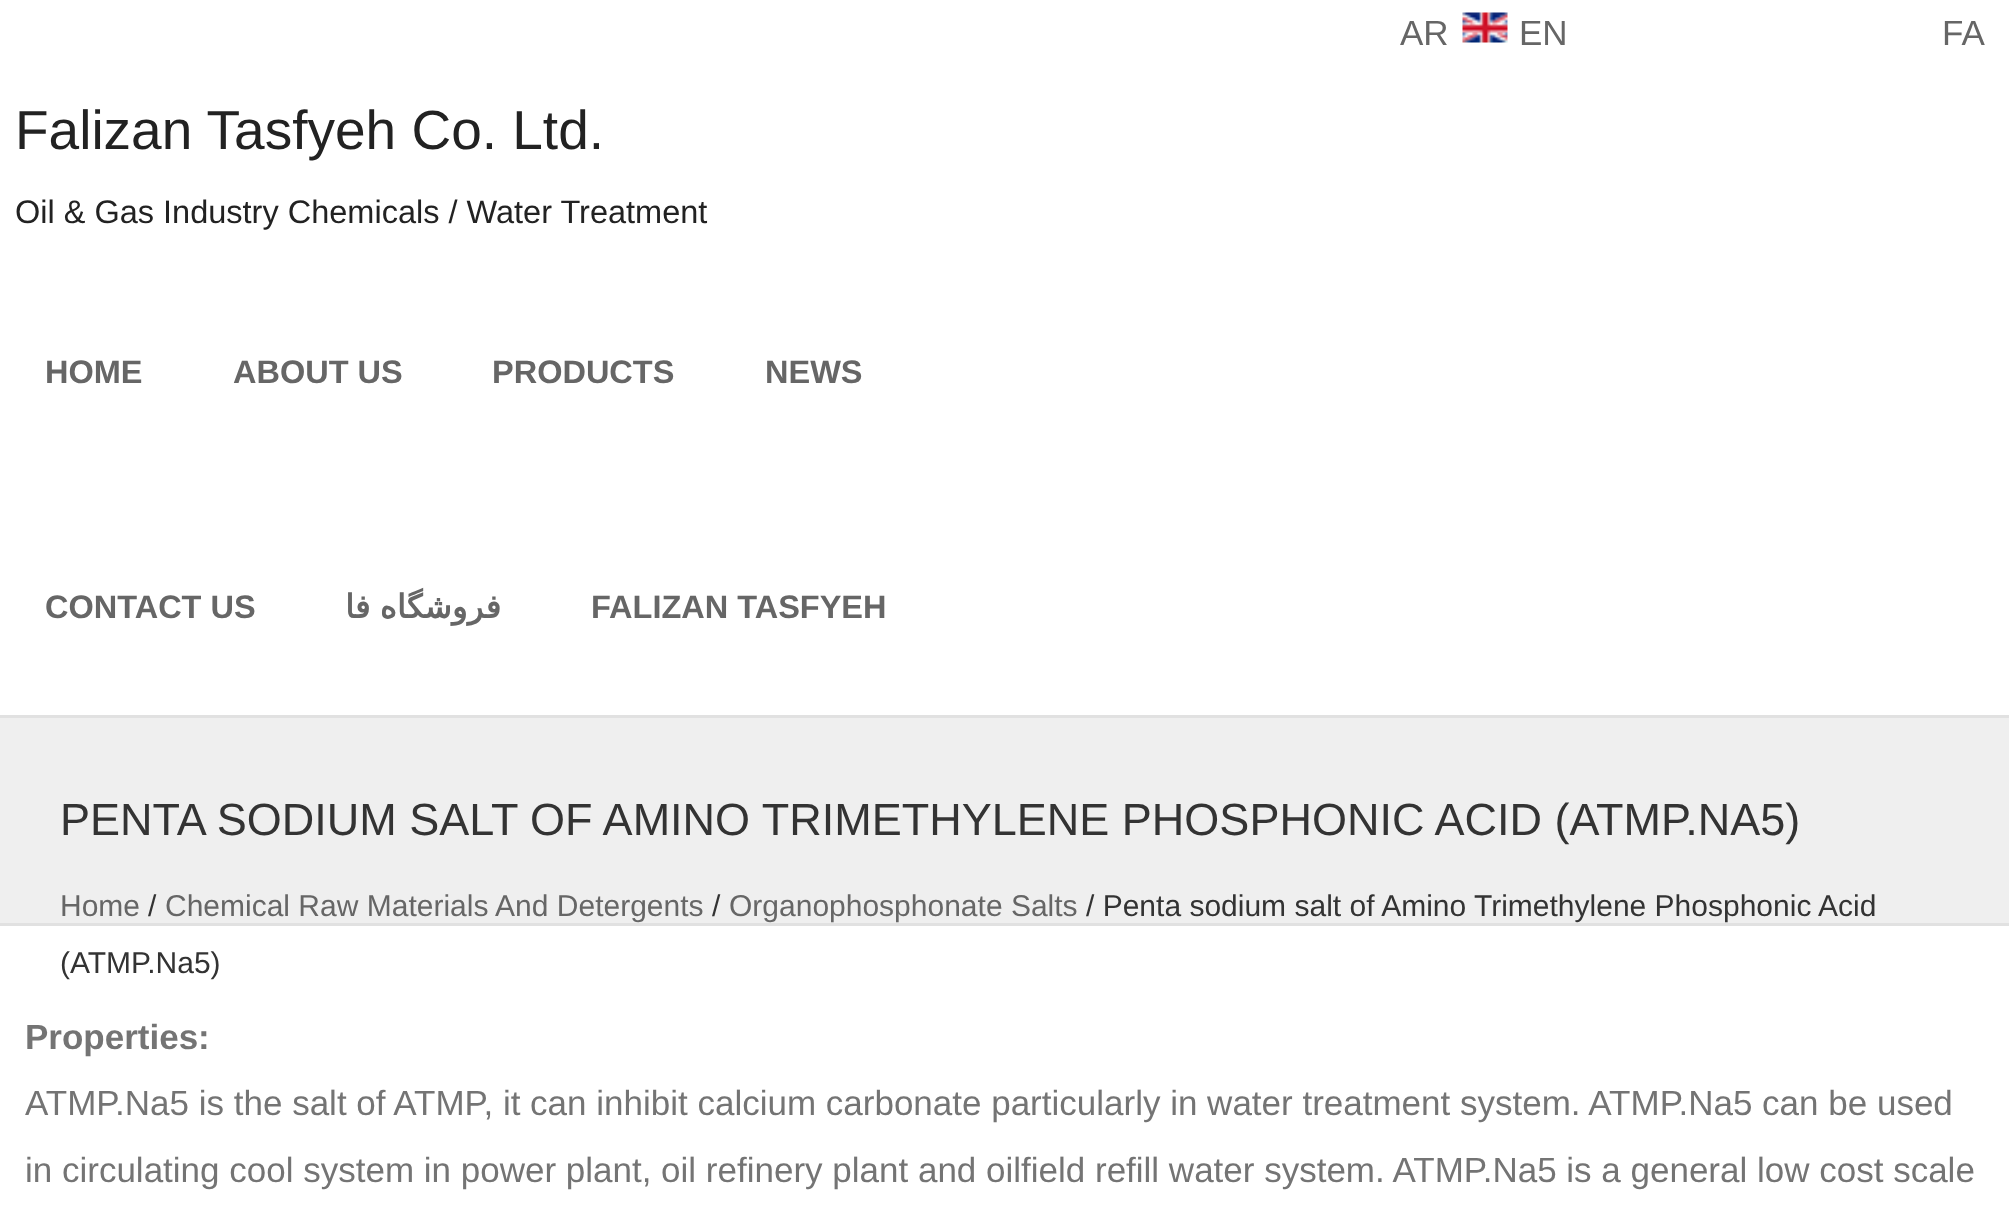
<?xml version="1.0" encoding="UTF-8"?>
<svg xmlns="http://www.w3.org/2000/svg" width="2009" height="1221">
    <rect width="100%" height="100%" fill="#FFFFFF"/>
    <text x="1400" y="45" font-family="Liberation Sans" font-size="35" fill="#666666">AR</text>
    <image x="1462" y="12" width="46" height="31" href="img_01.png"/>
    <text x="1519" y="45" font-family="Liberation Sans" font-size="35" fill="#666666">EN</text>
    <text x="1942" y="45" font-family="Liberation Sans" font-size="35" fill="#666666">FA</text>
    <text x="15" y="149" font-family="Liberation Sans" font-size="55" fill="#222222">Falizan Tasfyeh Co. Ltd.</text>
    <text x="15" y="223" font-family="Liberation Sans" font-size="32.5" fill="#222222">Oil &amp; Gas Industry Chemicals / Water Treatment</text>
    <text x="45" y="383" font-family="Liberation Sans" font-size="32.5" font-weight="700" fill="#666666">HOME</text>
    <text x="233" y="383" font-family="Liberation Sans" font-size="32.5" font-weight="700" fill="#666666">ABOUT US</text>
    <text x="492" y="383" font-family="Liberation Sans" font-size="32.5" font-weight="700" fill="#666666">PRODUCTS</text>
    <text x="765" y="383" font-family="Liberation Sans" font-size="32.5" font-weight="700" fill="#666666">NEWS</text>
    <text x="45" y="618" font-family="Liberation Sans" font-size="32.5" font-weight="700" fill="#666666">CONTACT US</text>
    <text x="501" y="618" word-spacing="-1" font-family="DejaVu Sans" font-size="32.5" font-weight="700" direction="rtl" fill="#666666">فروشگاه فا</text>
    <text x="591" y="618" font-family="Liberation Sans" font-size="32.5" font-weight="700" fill="#666666">FALIZAN TASFYEH</text>
    <rect x="0" y="718" width="2009" height="205" fill="#EFEFEF"/>
    <rect x="0" y="715" width="2009" height="3" fill="#E1E1E1"/>
    <rect x="0" y="923" width="2009" height="3" fill="#E1E1E1"/>
    <text x="60" y="835" font-family="Liberation Sans" font-size="45" fill="#333333">PENTA SODIUM SALT OF AMINO TRIMETHYLENE PHOSPHONIC ACID (ATMP.NA5)</text>
    <text x="60" y="916" font-family="Liberation Sans" font-size="30" fill="#666666">Home</text>
    <text x="148" y="916" font-family="Liberation Sans" font-size="30" fill="#333333">/</text>
    <text x="165" y="916" font-family="Liberation Sans" font-size="30" fill="#666666">Chemical Raw Materials And Detergents</text>
    <text x="712" y="916" font-family="Liberation Sans" font-size="30" fill="#333333">/</text>
    <text x="729" y="916" font-family="Liberation Sans" font-size="30" fill="#666666">Organophosphonate Salts</text>
    <text x="1086" y="916" font-family="Liberation Sans" font-size="30" fill="#333333">/ Penta sodium salt of Amino Trimethylene Phosphonic Acid</text>
    <text x="60" y="973" font-family="Liberation Sans" font-size="30" fill="#333333">(ATMP.Na5)</text>
    <text x="25" y="1049" font-family="Liberation Sans" font-size="35" font-weight="700" fill="#747474">Properties:</text>
    <text font-family="Liberation Sans" font-size="35" fill="#747474">
        <tspan x="25" y="1115">ATMP.Na5 is the salt of ATMP, it can inhibit calcium carbonate particularly in water treatment system. ATMP.Na5 can be used</tspan>
        <tspan x="25" y="1182">in circulating cool system in power plant, oil refinery plant and oilfield refill water system. ATMP.Na5 is a general low cost scale</tspan>
    </text>
</svg>
